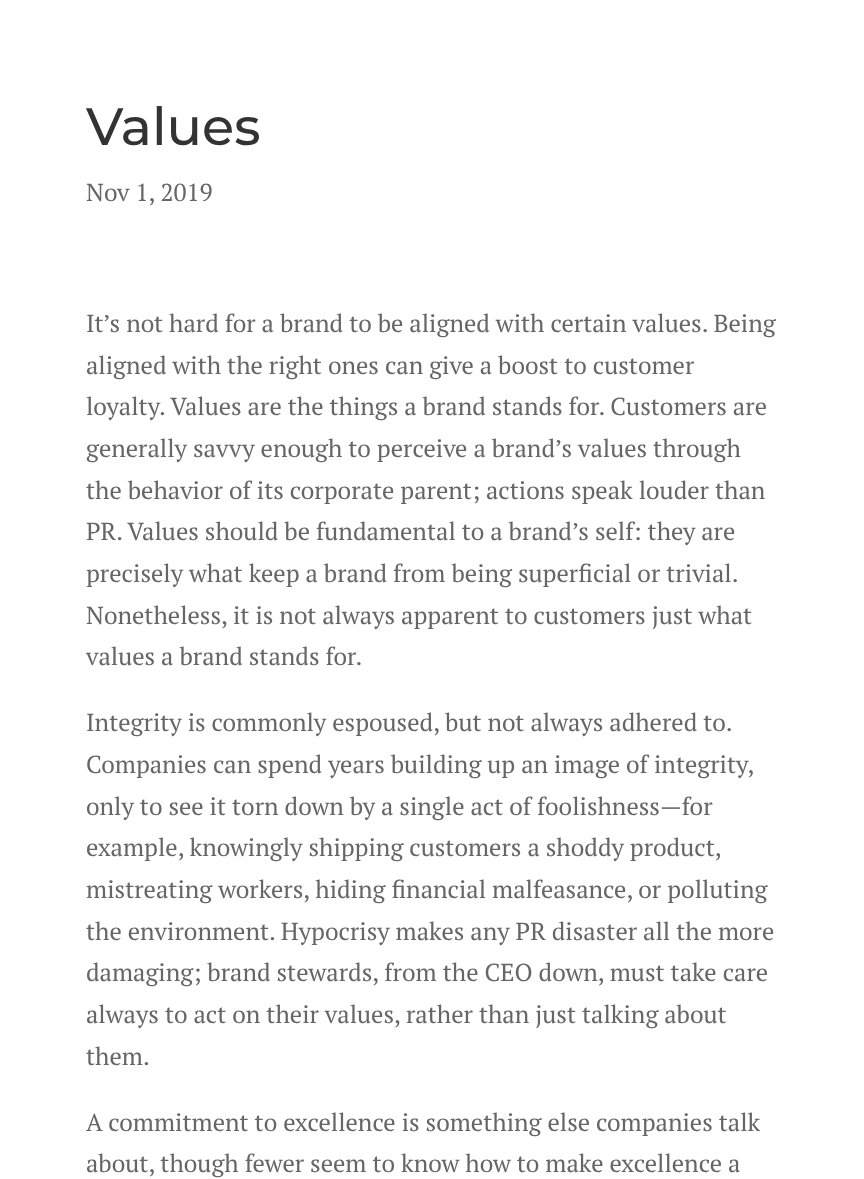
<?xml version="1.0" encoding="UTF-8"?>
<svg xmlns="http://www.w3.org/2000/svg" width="864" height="1179">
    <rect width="100%" height="100%" fill="#FFFFFF"/>
    <text x="86" y="145" font-family="Montserrat" font-size="52.5" font-weight="100" fill="#333333">Values</text>
    <text x="86" y="201" font-family="PT Serif" font-size="24.5" fill="#666666">Nov 1, 2019</text>
    <text font-family="PT Serif" font-size="24.5" fill="#666666">
        <tspan x="86" y="332">It’s not hard for a brand to be aligned with certain values. Being</tspan>
        <tspan x="86" y="374">aligned with the right ones can give a boost to customer</tspan>
        <tspan x="86" y="415">loyalty. Values are the things a brand stands for. Customers are</tspan>
        <tspan x="86" y="457">generally savvy enough to perceive a brand’s values through</tspan>
        <tspan x="86" y="499">the behavior of its corporate parent; actions speak louder than</tspan>
        <tspan x="86" y="540">PR. Values should be fundamental to a brand’s self: they are</tspan>
        <tspan x="86" y="582">precisely what keep a brand from being superficial or trivial.</tspan>
        <tspan x="86" y="624">Nonetheless, it is not always apparent to customers just what</tspan>
        <tspan x="86" y="665">values a brand stands for.</tspan>
    </text>
    <text font-family="PT Serif" font-size="24.5" fill="#666666">
        <tspan x="86" y="731">Integrity is commonly espoused, but not always adhered to.</tspan>
        <tspan x="86" y="773">Companies can spend years building up an image of integrity,</tspan>
        <tspan x="86" y="815">only to see it torn down by a single act of foolishness—for</tspan>
        <tspan x="86" y="856">example, knowingly shipping customers a shoddy product,</tspan>
        <tspan x="86" y="898">mistreating workers, hiding financial malfeasance, or polluting</tspan>
        <tspan x="86" y="940">the environment. Hypocrisy makes any PR disaster all the more</tspan>
        <tspan x="86" y="981">damaging; brand stewards, from the CEO down, must take care</tspan>
        <tspan x="86" y="1023">always to act on their values, rather than just talking about</tspan>
        <tspan x="86" y="1065">them.</tspan>
    </text>
    <text font-family="PT Serif" font-size="24.5" fill="#666666">
        <tspan x="86" y="1131">A commitment to excellence is something else companies talk</tspan>
        <tspan x="86" y="1172">about, though fewer seem to know how to make excellence a</tspan>
    </text>
</svg>
